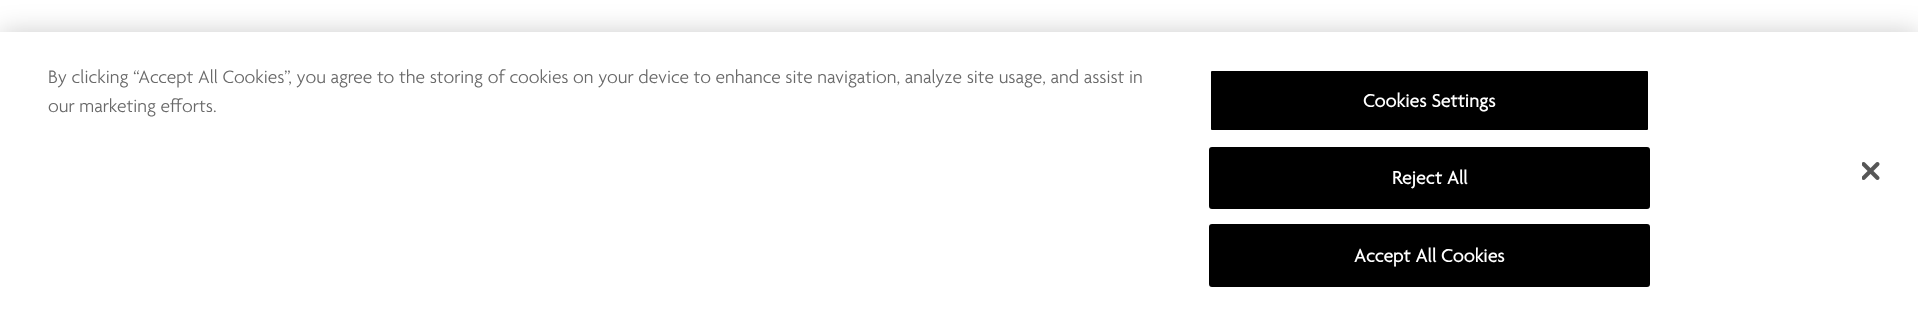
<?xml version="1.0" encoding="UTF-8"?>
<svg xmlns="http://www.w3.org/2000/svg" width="1918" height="316">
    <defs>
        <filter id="blur1" x="-50%" y="-200%" width="200%" height="500%"><feGaussianBlur stdDeviation="13.5"/></filter>
    </defs>
    <rect width="100%" height="100%" fill="#FFFFFF"/>
    <rect x="0" y="32" width="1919" height="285" fill="#000000" fill-opacity="0.2" filter="url(#blur1)"/>
    <rect x="0" y="32" width="1918" height="284" fill="#FFFFFF"/>
    <text font-family="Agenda" font-size="19.5" font-weight="300" fill="#696969">
        <tspan x="48" y="83">By clicking “Accept All Cookies”, you agree to the storing of cookies on your device to enhance site navigation, analyze site usage, and assist in</tspan>
        <tspan x="48" y="112">our marketing efforts.</tspan>
    </text>
    <rect x="1210" y="70" width="439" height="61" rx="2" fill="#000000" stroke="#FFFFFF" stroke-width="2"/>
    <text x="1363" y="107" font-family="Agenda" font-size="19.5" font-weight="700" letter-spacing="0.25" fill="#FFFFFF">Cookies Settings</text>
    <rect x="1210" y="148" width="439" height="60" rx="2" fill="#000000" stroke="#000000" stroke-width="2"/>
    <text x="1392" y="184" font-family="Agenda" font-size="19.5" font-weight="700" letter-spacing="0.25" fill="#FFFFFF">Reject All</text>
    <rect x="1210" y="225" width="439" height="61" rx="2" fill="#000000" stroke="#000000" stroke-width="2"/>
    <text x="1354" y="262" font-family="Agenda" font-size="19.5" font-weight="700" letter-spacing="0.25" fill="#FFFFFF">Accept All Cookies</text>
    <image x="1862" y="162" width="18" height="18" href="img_01.png"/>
</svg>
